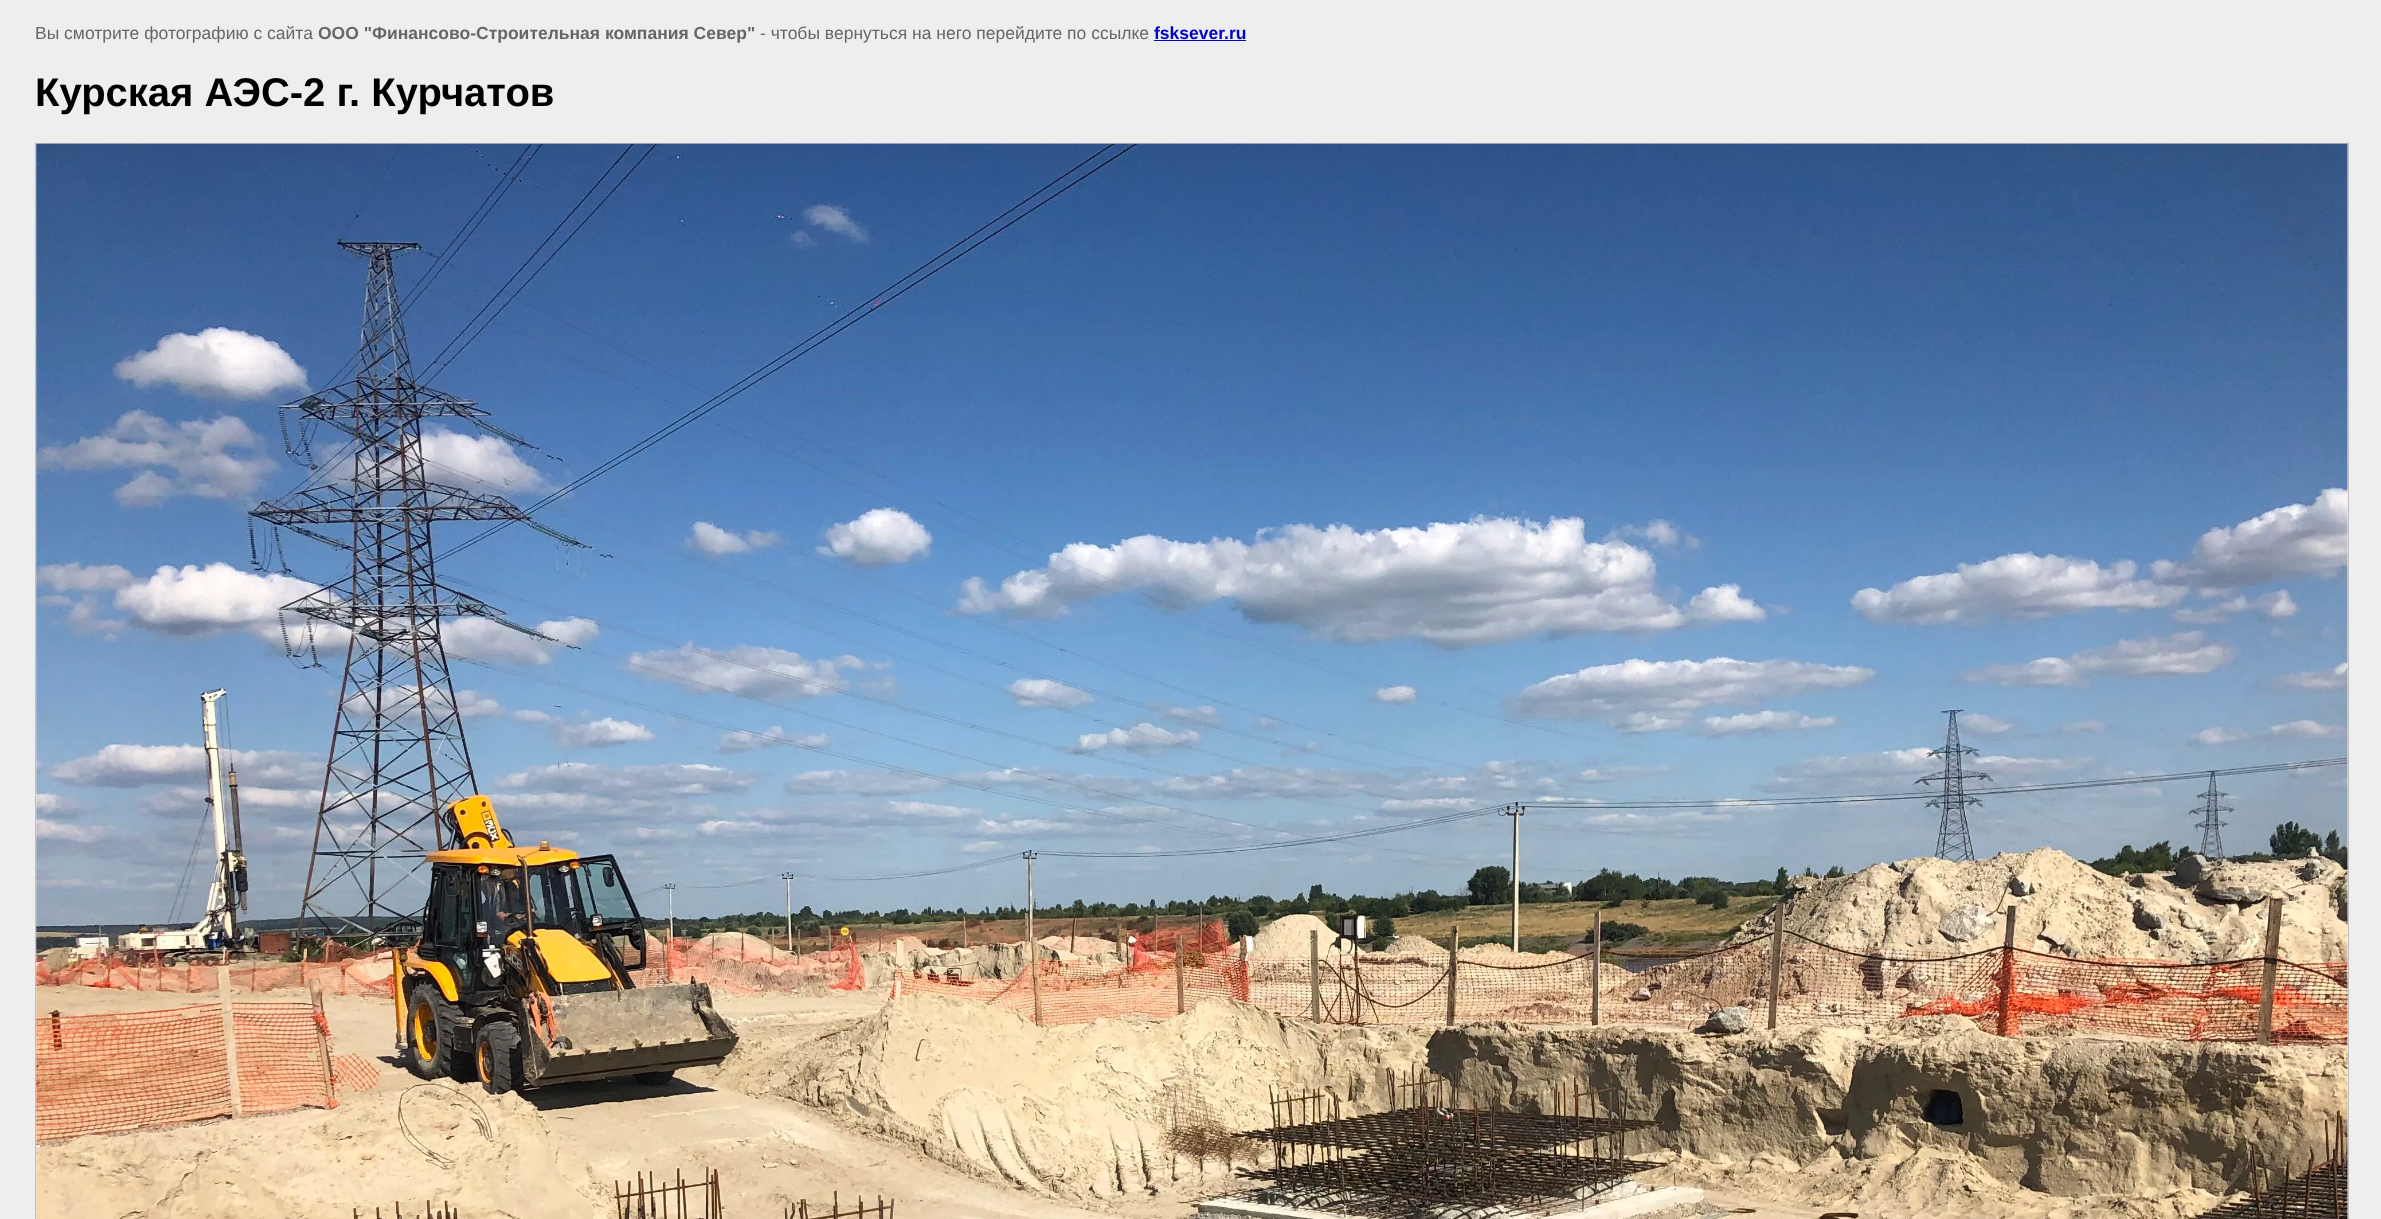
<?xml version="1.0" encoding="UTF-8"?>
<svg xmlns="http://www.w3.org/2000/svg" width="2381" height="1219">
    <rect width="100%" height="100%" fill="#EEEEEE"/>
    <text x="35" y="39" font-family="Liberation Sans" font-size="17.5" fill="#666666">Вы смотрите фотографию с сайта</text>
    <text x="318" y="39" font-family="Liberation Sans" font-size="17.5" font-weight="700" fill="#666666">ООО "Финансово-Строительная компания Север"</text>
    <text x="760" y="39" font-family="Liberation Sans" font-size="17.5" fill="#666666">- чтобы вернуться на него перейдите по ссылке</text>
    <text x="1154" y="39" font-family="Liberation Sans" font-size="17.5" font-weight="700" fill="#0000CC">fsksever.ru</text>
    <rect x="1154" y="40" width="92" height="1" fill="#0000CC"/>
    <text x="35" y="106" font-family="Liberation Sans" font-size="40" font-weight="700" fill="#000000">Курская АЭС-2 г. Курчатов</text>
    <rect x="35.5" y="143.5" width="2313" height="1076" fill="none" stroke="#C0C0C0"/>
    <image x="36" y="143" width="2312" height="1076" href="img_01.png"/>
</svg>
